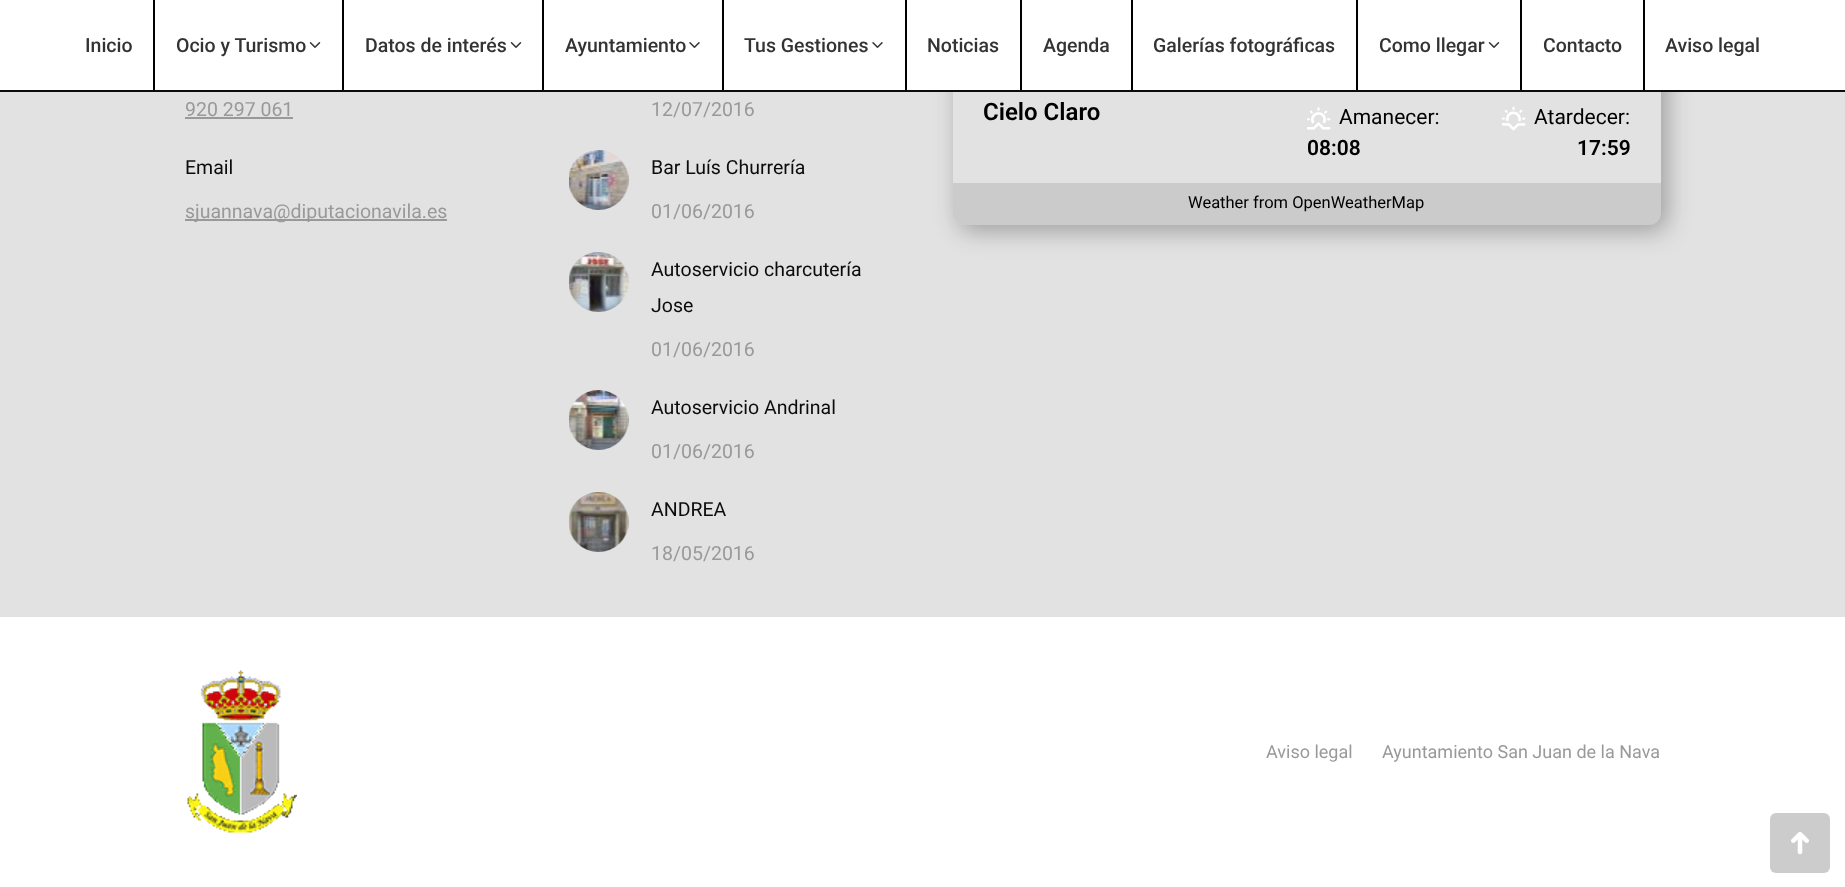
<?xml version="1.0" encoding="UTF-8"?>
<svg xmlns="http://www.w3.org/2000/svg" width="1845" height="887">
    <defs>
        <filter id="blur1" x="-50%" y="-200%" width="200%" height="500%"><feGaussianBlur stdDeviation="12"/></filter>
    </defs>
    <rect width="100%" height="100%" fill="#E2E2E2"/>
    <rect x="959" y="-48" width="708" height="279" rx="12" fill="#000000" fill-opacity="0.3" filter="url(#blur1)"/>
    <rect x="953" y="-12" width="708" height="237" rx="12" fill="#E2E2E2"/>
    <rect x="0" y="0" width="1845" height="90" fill="#FFFFFF"/>
    <rect x="0" y="90" width="1845" height="2" fill="#0C0C0C"/>
    <text x="85" y="52" font-family="Roboto" font-size="19.5" font-weight="500" fill="#333333">Inicio</text>
    <rect x="153" y="0" width="2" height="90" fill="#000000"/>
    <text x="176" y="52" font-family="Roboto" font-size="19.5" font-weight="500" fill="#333333">Ocio y Turismo</text>
    <image x="309" y="42" width="12" height="6" href="img_01.png"/>
    <rect x="342" y="0" width="2" height="90" fill="#000000"/>
    <text x="365" y="52" font-family="Roboto" font-size="19.5" font-weight="500" fill="#333333">Datos de interés</text>
    <image x="510" y="42" width="12" height="6" href="img_01.png"/>
    <rect x="542" y="0" width="2" height="90" fill="#000000"/>
    <text x="565" y="52" font-family="Roboto" font-size="19.5" font-weight="500" fill="#333333">Ayuntamiento</text>
    <image x="689" y="42" width="11" height="6" href="img_02.png"/>
    <rect x="722" y="0" width="2" height="90" fill="#000000"/>
    <text x="744" y="52" font-family="Roboto" font-size="19.5" font-weight="500" fill="#333333">Tus Gestiones</text>
    <image x="872" y="42" width="11" height="6" href="img_02.png"/>
    <rect x="905" y="0" width="2" height="90" fill="#000000"/>
    <text x="927" y="52" font-family="Roboto" font-size="19.5" font-weight="500" fill="#333333">Noticias</text>
    <rect x="1020" y="0" width="2" height="90" fill="#000000"/>
    <text x="1043" y="52" font-family="Roboto" font-size="19.5" font-weight="500" fill="#333333">Agenda</text>
    <rect x="1131" y="0" width="2" height="90" fill="#000000"/>
    <text x="1153" y="52" font-family="Roboto" font-size="19.5" font-weight="500" fill="#333333">Galerías fotográficas</text>
    <rect x="1356" y="0" width="2" height="90" fill="#000000"/>
    <text x="1379" y="52" font-family="Roboto" font-size="19.5" font-weight="500" fill="#333333">Como llegar</text>
    <image x="1488" y="42" width="12" height="6" href="img_01.png"/>
    <rect x="1520" y="0" width="2" height="90" fill="#000000"/>
    <text x="1543" y="52" font-family="Roboto" font-size="19.5" font-weight="500" fill="#333333">Contacto</text>
    <rect x="1643" y="0" width="2" height="90" fill="#000000"/>
    <text x="1665" y="52" font-family="Roboto" font-size="19.5" font-weight="500" fill="#333333">Aviso legal</text>
    <text x="185" y="116" font-family="Roboto" font-size="19.5" fill="#999999">920 297 061</text>
    <rect x="185" y="117" width="108" height="2" fill="#999999"/>
    <text x="185" y="174" font-family="Roboto" font-size="19.5" fill="#0C0C0C">Email</text>
    <rect x="185" y="219" width="262" height="2" fill="#999999"/>
    <text x="185" y="218" font-family="Roboto" font-size="19.5" fill="#999999">sjuannava@diputacionavila.es</text>
    <text x="651" y="116" font-family="Roboto" font-size="19.5" fill="#999999">12/07/2016</text>
    <image x="569" y="150" width="60" height="60" href="img_03.png"/>
    <text x="651" y="174" font-family="Roboto" font-size="19.5" fill="#0C0C0C">Bar Luís Churrería</text>
    <text x="651" y="218" font-family="Roboto" font-size="19.5" fill="#999999">01/06/2016</text>
    <image x="569" y="252" width="60" height="60" href="img_04.png"/>
    <text font-family="Roboto" font-size="19.5" fill="#0C0C0C">
        <tspan x="651" y="276">Autoservicio charcutería</tspan>
        <tspan x="651" y="312">Jose</tspan>
    </text>
    <text x="651" y="356" font-family="Roboto" font-size="19.5" fill="#999999">01/06/2016</text>
    <image x="569" y="390" width="60" height="60" href="img_05.png"/>
    <text x="651" y="414" font-family="Roboto" font-size="19.5" fill="#0C0C0C">Autoservicio Andrinal</text>
    <text x="651" y="458" font-family="Roboto" font-size="19.5" fill="#999999">01/06/2016</text>
    <image x="569" y="492" width="60" height="60" href="img_06.png"/>
    <text x="651" y="516" font-family="Roboto" font-size="19.5" fill="#0C0C0C">ANDREA</text>
    <text x="651" y="560" font-family="Roboto" font-size="19.5" fill="#999999">18/05/2016</text>
    <text x="983" y="120" font-family="Roboto" font-size="24" font-weight="600" fill="#000000">Cielo Claro</text>
    <image x="1307" y="107" width="24" height="23" href="img_07.png"/>
    <text x="1339" y="124" font-family="Roboto" font-size="21" fill="#000000">Amanecer:</text>
    <text x="1307" y="155" font-family="Roboto" font-size="21" font-weight="600" fill="#000000">08:08</text>
    <image x="1502" y="106" width="24" height="25" href="img_08.png"/>
    <text x="1534" y="124" font-family="Roboto" font-size="21" fill="#000000">Atardecer:</text>
    <text x="1577" y="155" font-family="Roboto" font-size="21" font-weight="600" fill="#000000">17:59</text>
    <path d="M 953 183 H 1661 V 213 C 1661 219.5 1655.5 225 1649 225 H 965 C 958.5 225 953 219.5 953 213 Z" fill="#000000" fill-opacity="0.1"/>
    <text x="1188" y="208" font-family="Roboto" font-size="16.5" fill="#000000">Weather from OpenWeatherMap</text>
    <rect x="0" y="617" width="1845" height="270" fill="#FFFFFF"/>
    <image x="187" y="670" width="110" height="163" href="img_09.png"/>
    <text x="1266" y="758" font-family="Roboto" font-size="18" fill="#999999">Aviso legal</text>
    <text x="1382" y="758" font-family="Roboto" font-size="18" fill="#999999">Ayuntamiento San Juan de la Nava</text>
    <rect x="1770" y="813" width="60" height="60" rx="6" fill="#CCCCCC"/>
    <image x="1791" y="831" width="18" height="24" href="img_10.png"/>
</svg>
